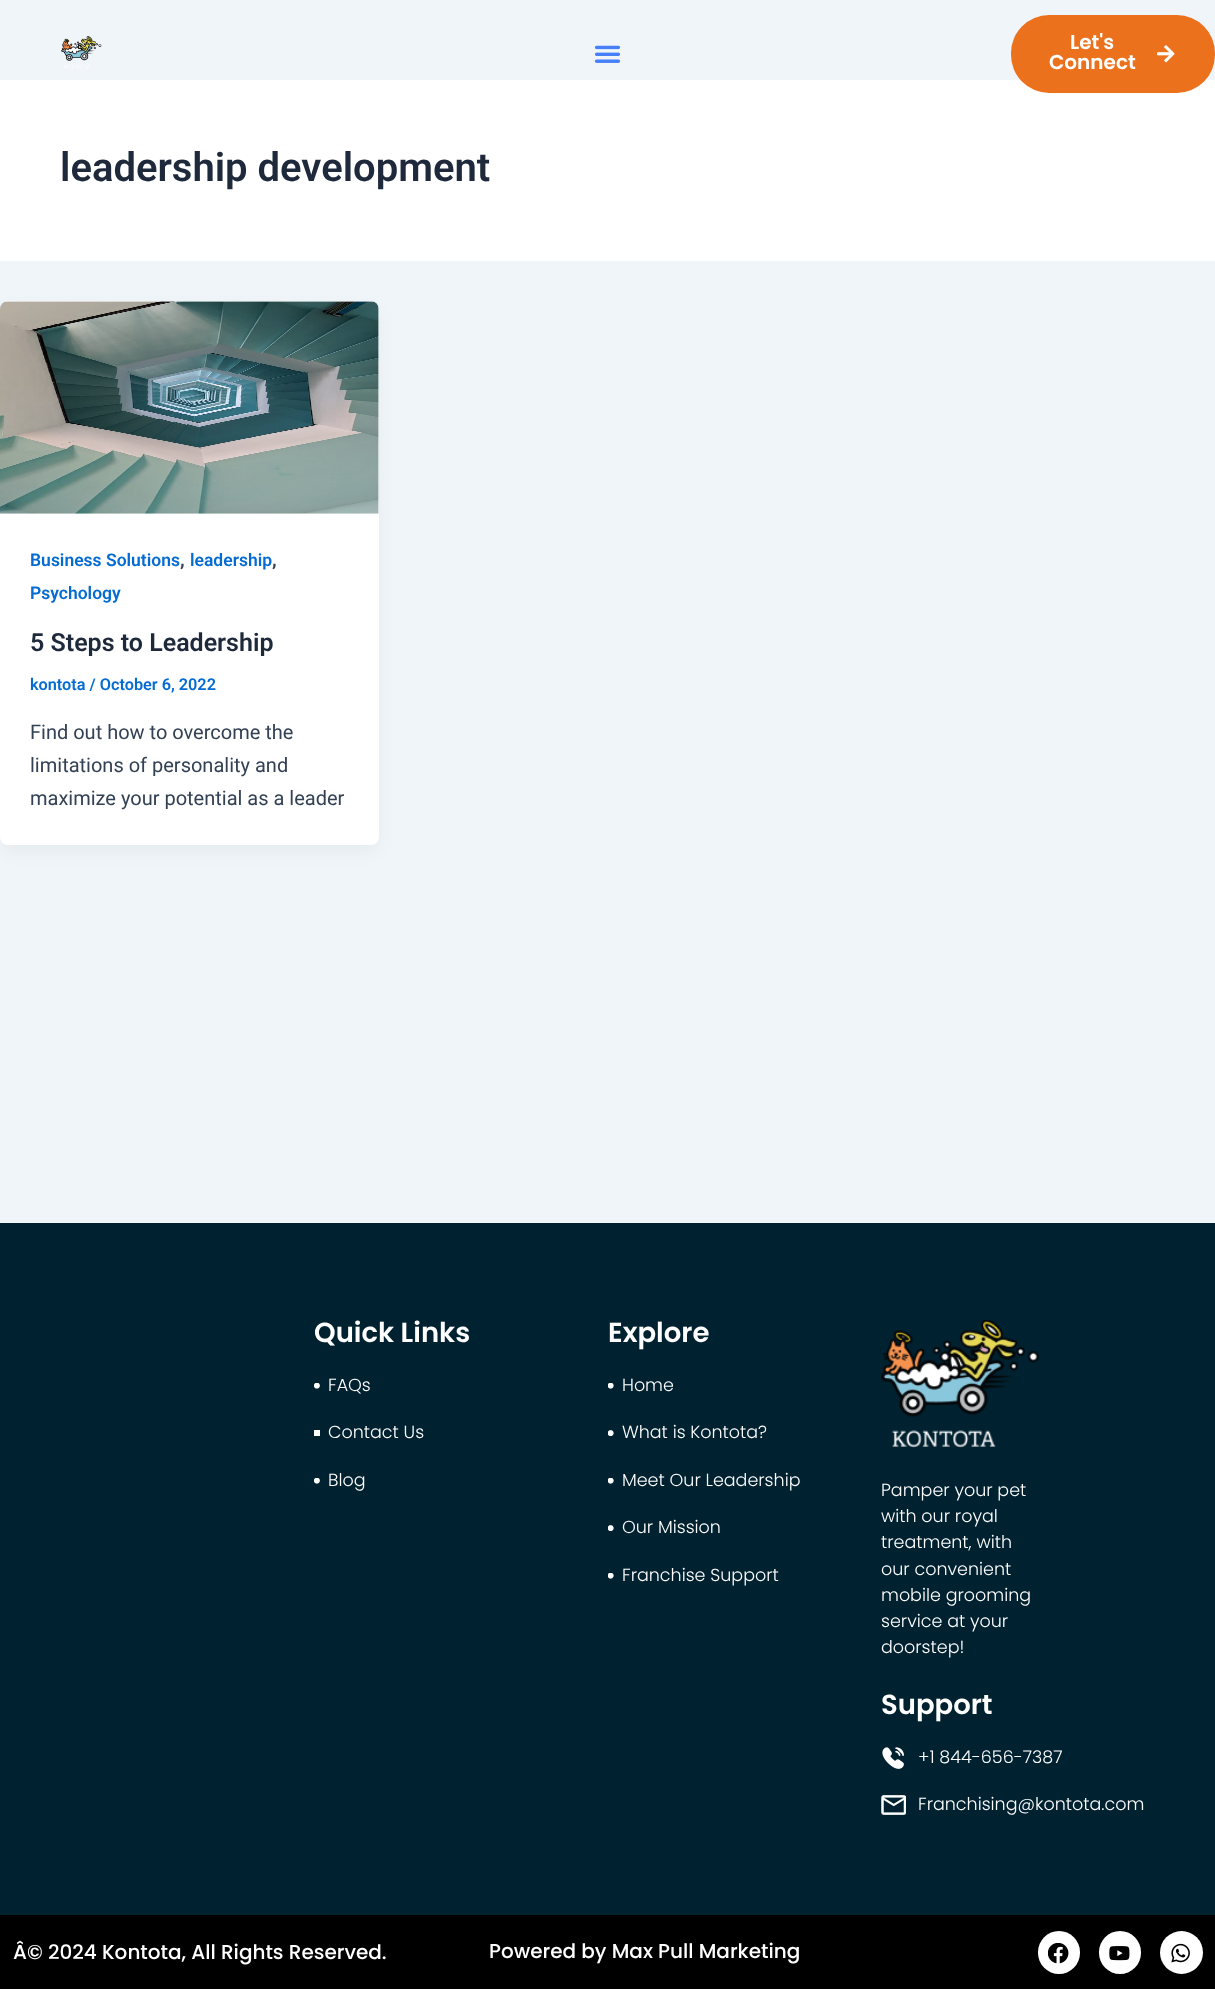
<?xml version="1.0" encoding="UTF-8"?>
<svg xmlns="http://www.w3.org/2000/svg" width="1215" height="1989">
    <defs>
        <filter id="blur1" x="-50%" y="-200%" width="200%" height="500%"><feGaussianBlur stdDeviation="9.5"/></filter>
    </defs>
    <rect width="100%" height="100%" fill="#F0F5FA"/>
    <image x="61" y="36" width="41" height="33" href="img_01.png"/>
    <image x="594" y="45" width="27" height="18" href="img_02.png"/>
    <rect x="0" y="80" width="1215" height="181" fill="#FFFFFF"/>
    <rect x="1011" y="15" width="204" height="78" rx="38" fill="#EC711D"/>
    <text x="1070" y="49" font-family="Poppins" font-size="20" font-weight="600" fill="#FFFFFF">Let's</text>
    <text x="1049" y="69" font-family="Poppins" font-size="20" font-weight="600" fill="#FFFFFF">Connect</text>
    <image x="1157" y="45" width="18" height="18" href="img_03.png"/>
    <text x="60" y="181" font-family="Roboto" font-size="40" font-weight="600" fill="#1E293B">leadership development</text>
    <rect x="3" y="311" width="373" height="539" rx="5" fill="#101828" fill-opacity="0.05" filter="url(#blur1)"/>
    <rect x="0" y="301" width="379" height="544" rx="8" fill="#FFFFFF"/>
    <image x="0" y="301" width="379" height="213" href="img_04.png"/>
    <text x="30" y="566" font-family="Roboto" font-size="17.5" font-weight="600" fill="#046BD2">Business Solutions</text>
    <text x="180" y="566" font-family="Roboto" font-size="20" font-weight="600" fill="#334155">,</text>
    <text x="190" y="566" font-family="Roboto" font-size="17.5" font-weight="600" fill="#046BD2">leadership</text>
    <text x="272" y="566" font-family="Roboto" font-size="20" font-weight="600" fill="#334155">,</text>
    <text x="30" y="599" font-family="Roboto" font-size="17.5" font-weight="600" fill="#046BD2">Psychology</text>
    <text x="30" y="651" font-family="Roboto" font-size="25" font-weight="600" fill="#1E293B">5 Steps to Leadership</text>
    <text x="30" y="690" font-family="Roboto" font-size="16.25" font-weight="600" fill="#046BD2">kontota / October 6, 2022</text>
    <text font-family="Roboto" font-size="20" fill="#334155">
        <tspan x="30" y="739">Find out how to overcome the</tspan>
        <tspan x="30" y="772">limitations of personality and</tspan>
        <tspan x="30" y="805">maximize your potential as a leader</tspan>
    </text>
    <rect x="0" y="1223" width="1215" height="692" fill="#00212F"/>
    <text x="314" y="1342" font-family="Poppins" font-size="27.5" font-weight="600" fill="#FFFFFF">Quick Links</text>
    <image x="314" y="1383" width="6" height="6" href="img_05.png"/>
    <text x="328" y="1391" font-family="Poppins" font-size="17.5" font-weight="300" fill="#FFFFFF">FAQs</text>
    <rect x="314" y="1430" width="6" height="6" fill="#FFFFFF"/>
    <text x="328" y="1438" font-family="Poppins" font-size="17.5" font-weight="300" fill="#FFFFFF">Contact Us</text>
    <image x="314" y="1478" width="6" height="6" href="img_05.png"/>
    <text x="328" y="1486" font-family="Poppins" font-size="17.5" font-weight="300" fill="#FFFFFF">Blog</text>
    <text x="608" y="1342" font-family="Poppins" font-size="27.5" font-weight="600" fill="#FFFFFF">Explore</text>
    <image x="608" y="1383" width="6" height="6" href="img_06.png"/>
    <text x="622" y="1391" font-family="Poppins" font-size="17.5" font-weight="300" fill="#FFFFFF">Home</text>
    <image x="608" y="1430" width="6" height="6" href="img_07.png"/>
    <text x="622" y="1438" font-family="Poppins" font-size="17.5" font-weight="300" fill="#FFFFFF">What is Kontota?</text>
    <image x="608" y="1478" width="6" height="6" href="img_06.png"/>
    <text x="622" y="1486" font-family="Poppins" font-size="17.5" font-weight="300" fill="#FFFFFF">Meet Our Leadership</text>
    <image x="608" y="1525" width="6" height="6" href="img_07.png"/>
    <text x="622" y="1533" font-family="Poppins" font-size="17.5" font-weight="300" fill="#FFFFFF">Our Mission</text>
    <image x="608" y="1573" width="6" height="6" href="img_06.png"/>
    <text x="622" y="1581" font-family="Poppins" font-size="17.5" font-weight="300" fill="#FFFFFF">Franchise Support</text>
    <image x="881" y="1320" width="158" height="128" href="img_08.png"/>
    <text font-family="Poppins" font-size="17.5" font-weight="300" fill="#FFFFFF">
        <tspan x="881" y="1496">Pamper your pet</tspan>
        <tspan x="881" y="1522">with our royal</tspan>
        <tspan x="881" y="1548">treatment, with</tspan>
        <tspan x="881" y="1575">our convenient</tspan>
        <tspan x="881" y="1601">mobile grooming</tspan>
        <tspan x="881" y="1627">service at your</tspan>
        <tspan x="881" y="1653">doorstep!</tspan>
    </text>
    <text x="881" y="1714" font-family="Poppins" font-size="27.5" font-weight="600" fill="#FFFFFF">Support</text>
    <image x="882" y="1747" width="22" height="22" href="img_09.png"/>
    <text x="918" y="1763" font-family="Poppins" font-size="17.5" font-weight="300" fill="#FFFFFF">+1 844-656-7387</text>
    <image x="881" y="1795" width="25" height="20" href="img_10.png"/>
    <text x="918" y="1810" font-family="Poppins" font-size="17.5" font-weight="300" fill="#FFFFFF">Franchising@kontota.com</text>
    <rect x="0" y="1915" width="1215" height="74" fill="#000000"/>
    <text x="13" y="1959" font-family="Poppins" font-size="20" font-weight="500" fill="#FFFFFF">Â© 2024 Kontota, All Rights Reserved.</text>
    <text x="489" y="1958" font-family="Poppins" font-size="20" font-weight="500" fill="#FFFFFF">Powered by Max Pull Marketing</text>
    <rect x="1038" y="1931" width="42" height="43" rx="21" fill="#FFFFFF"/>
    <image x="1048" y="1943" width="21" height="21" href="img_11.png"/>
    <rect x="1099" y="1931" width="42" height="43" rx="21" fill="#FFFFFF"/>
    <image x="1109" y="1946" width="21" height="15" href="img_12.png"/>
    <circle cx="1181.5" cy="1952.5" r="21.5" fill="#FFFFFF"/>
    <image x="1171" y="1943" width="19" height="20" href="img_13.png"/>
</svg>
